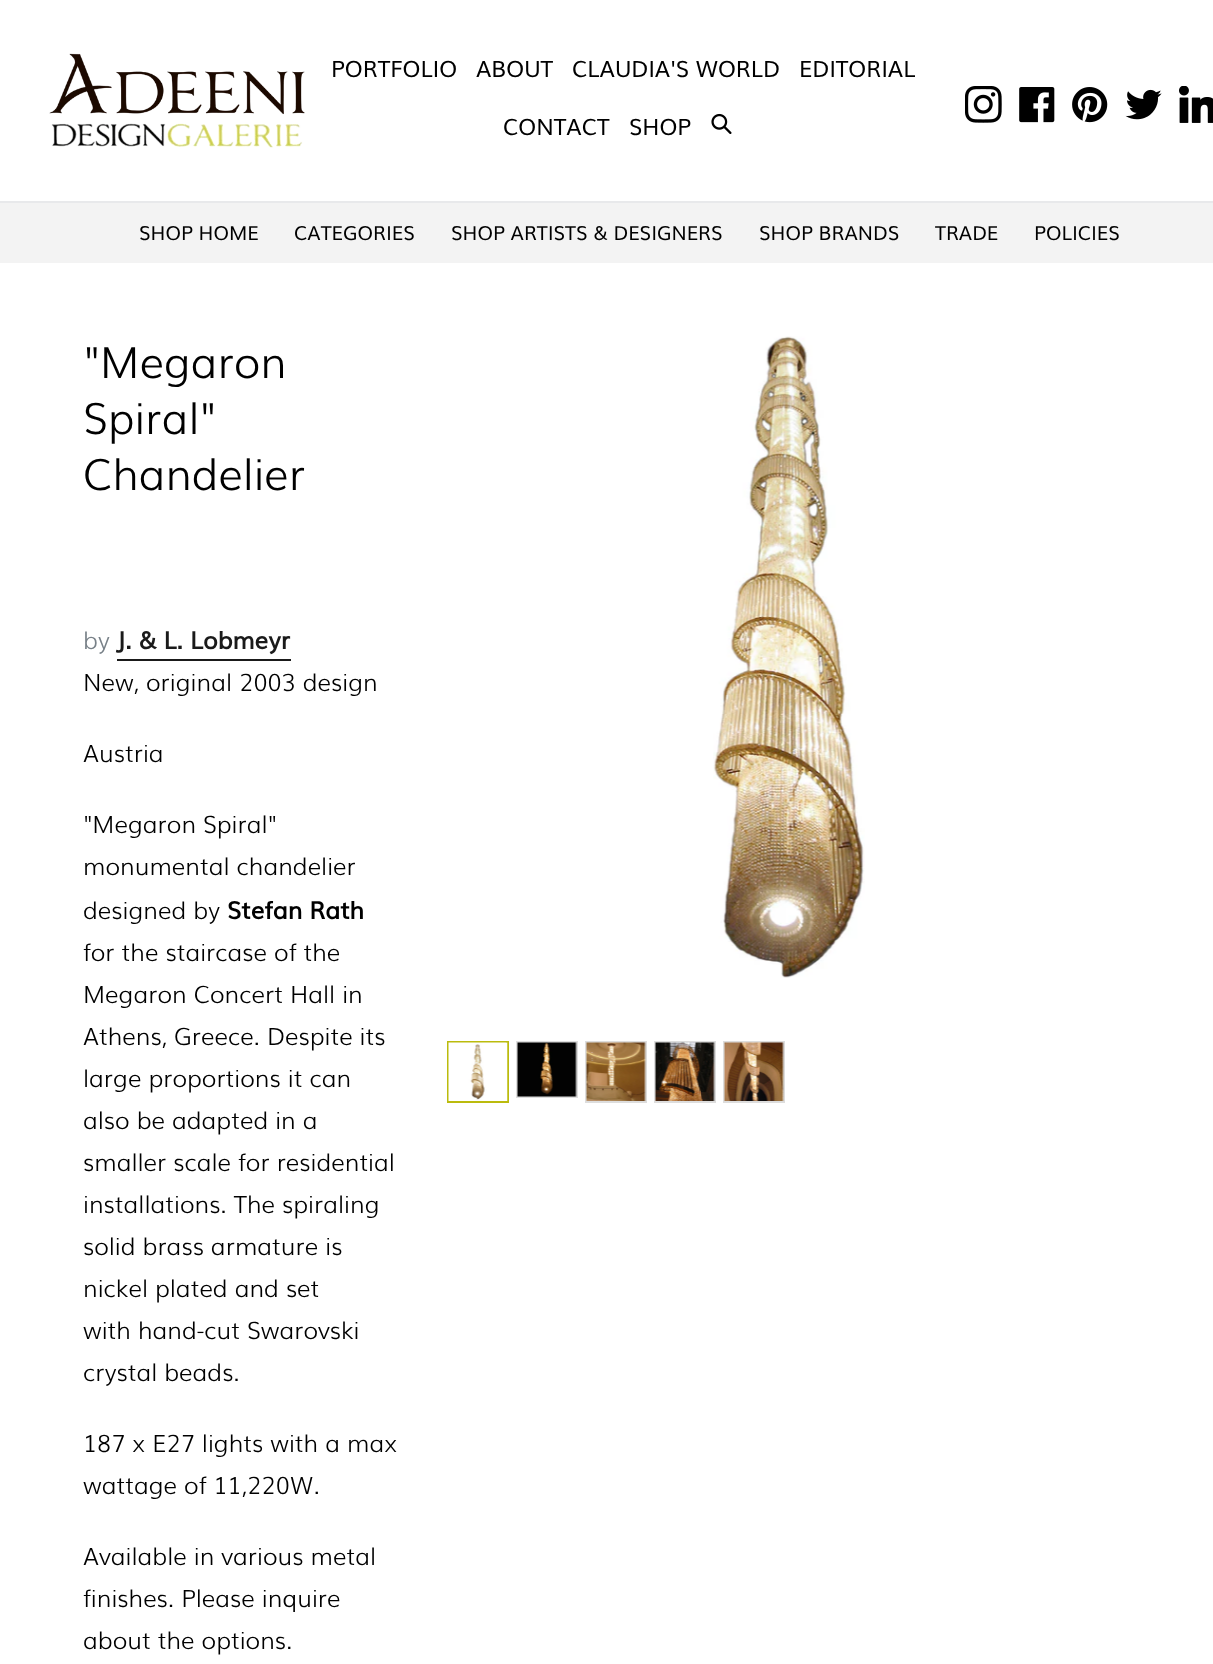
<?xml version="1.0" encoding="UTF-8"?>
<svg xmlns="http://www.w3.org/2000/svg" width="1213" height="1664">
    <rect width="100%" height="100%" fill="#FFFFFF"/>
    <rect x="0" y="201" width="1213" height="2" fill="#E8E9EB"/>
    <image x="49" y="53" width="256" height="95" href="img_01.png"/>
    <text x="331" y="77" font-family="Muli" font-size="22.5" fill="#000000">PORTFOLIO</text>
    <text x="476" y="77" font-family="Muli" font-size="22.5" fill="#000000">ABOUT</text>
    <text x="572" y="77" font-family="Muli" font-size="22.5" fill="#000000">CLAUDIA'S WORLD</text>
    <text x="799" y="77" font-family="Muli" font-size="22.5" fill="#000000">EDITORIAL</text>
    <text x="503" y="135" font-family="Muli" font-size="22.5" fill="#000000">CONTACT</text>
    <text x="629" y="135" font-family="Muli" font-size="22.5" fill="#000000">SHOP</text>
    <image x="711" y="113" width="21" height="21" href="img_02.png"/>
    <image x="965" y="86" width="37" height="37" href="img_03.png"/>
    <image x="1019" y="87" width="36" height="36" href="img_04.png"/>
    <image x="1072" y="87" width="36" height="36" href="img_05.png"/>
    <image x="1125" y="89" width="37" height="31" href="img_06.png"/>
    <image x="1179" y="86" width="34" height="37" href="img_07.png"/>
    <rect x="0" y="203" width="1213" height="60" fill="#F3F3F3"/>
    <text x="139" y="240" font-family="Muli" font-size="19.5" fill="#000000">SHOP HOME</text>
    <text x="294" y="240" font-family="Muli" font-size="19.5" fill="#000000">CATEGORIES</text>
    <text x="451" y="240" font-family="Muli" font-size="19.5" fill="#000000">SHOP ARTISTS &amp; DESIGNERS</text>
    <text x="759" y="240" font-family="Muli" font-size="19.5" fill="#000000">SHOP BRANDS</text>
    <text x="935" y="240" font-family="Muli" font-size="19.5" fill="#000000">TRADE</text>
    <text x="1034" y="240" font-family="Muli" font-size="19.5" fill="#000000">POLICIES</text>
    <text font-family="Muli" font-size="43.25" font-weight="300" fill="#000000">
        <tspan x="83" y="378">"Megaron</tspan>
        <tspan x="83" y="434">Spiral"</tspan>
        <tspan x="83" y="490">Chandelier</tspan>
    </text>
    <text x="83" y="649" font-family="Muli" font-size="24" font-weight="300" fill="#788188">by</text>
    <text x="116" y="649" font-family="Muli" font-size="24" font-weight="700" fill="#1A1A1A">J. &amp; L. Lobmeyr</text>
    <rect x="117" y="659" width="174" height="2" fill="#1A1A1A"/>
    <text x="83" y="691" font-family="Muli" font-size="24" font-weight="300" fill="#000000">New, original 2003 design</text>
    <text x="83" y="762" font-family="Muli" font-size="24" font-weight="300" fill="#000000">Austria</text>
    <text font-family="Muli" font-size="24" font-weight="300" fill="#000000">
        <tspan x="83" y="833">"Megaron Spiral"</tspan>
        <tspan x="83" y="875">monumental chandelier</tspan>
        <tspan x="83" y="919">designed by</tspan>
    </text>
    <text x="227" y="919" font-family="Muli" font-size="24" font-weight="700" fill="#000000">Stefan Rath</text>
    <text font-family="Muli" font-size="24" font-weight="300" fill="#000000">
        <tspan x="83" y="961">for the staircase of the</tspan>
        <tspan x="83" y="1003">Megaron Concert Hall in</tspan>
        <tspan x="83" y="1045">Athens, Greece. Despite its</tspan>
        <tspan x="83" y="1087">large proportions it can</tspan>
        <tspan x="83" y="1129">also be adapted in a</tspan>
        <tspan x="83" y="1171">smaller scale for residential</tspan>
        <tspan x="83" y="1213">installations. The spiraling</tspan>
        <tspan x="83" y="1255">solid brass armature is</tspan>
        <tspan x="83" y="1297">nickel plated and set</tspan>
        <tspan x="83" y="1339">with hand-cut Swarovski</tspan>
        <tspan x="83" y="1381">crystal beads.</tspan>
    </text>
    <text font-family="Muli" font-size="24" font-weight="300" fill="#000000">
        <tspan x="83" y="1452">187 x E27 lights with a max</tspan>
        <tspan x="83" y="1494">wattage of 11,220W.</tspan>
    </text>
    <text font-family="Muli" font-size="24" font-weight="300" fill="#000000">
        <tspan x="83" y="1565">Available in various metal</tspan>
        <tspan x="83" y="1607">finishes. Please inquire</tspan>
        <tspan x="83" y="1649">about the options.</tspan>
    </text>
    <image x="713" y="336" width="152" height="642" href="img_08.png"/>
    <rect x="448" y="1042" width="60" height="60" fill="none" stroke="#BBBB0D" stroke-width="2"/>
    <image x="448" y="1042" width="60" height="59" href="img_09.png"/>
    <rect x="517" y="1042" width="60" height="55" fill="none" stroke="#DDDDDD" stroke-width="2"/>
    <image x="517" y="1042" width="60" height="55" href="img_10.png"/>
    <rect x="586" y="1042" width="60" height="60" fill="none" stroke="#DDDDDD" stroke-width="2"/>
    <image x="586" y="1042" width="60" height="59" href="img_11.png"/>
    <rect x="655" y="1042" width="60" height="60" fill="none" stroke="#DDDDDD" stroke-width="2"/>
    <image x="655" y="1042" width="60" height="59" href="img_12.png"/>
    <rect x="724" y="1042" width="60" height="60" fill="none" stroke="#DDDDDD" stroke-width="2"/>
    <image x="724" y="1042" width="60" height="59" href="img_13.png"/>
</svg>
